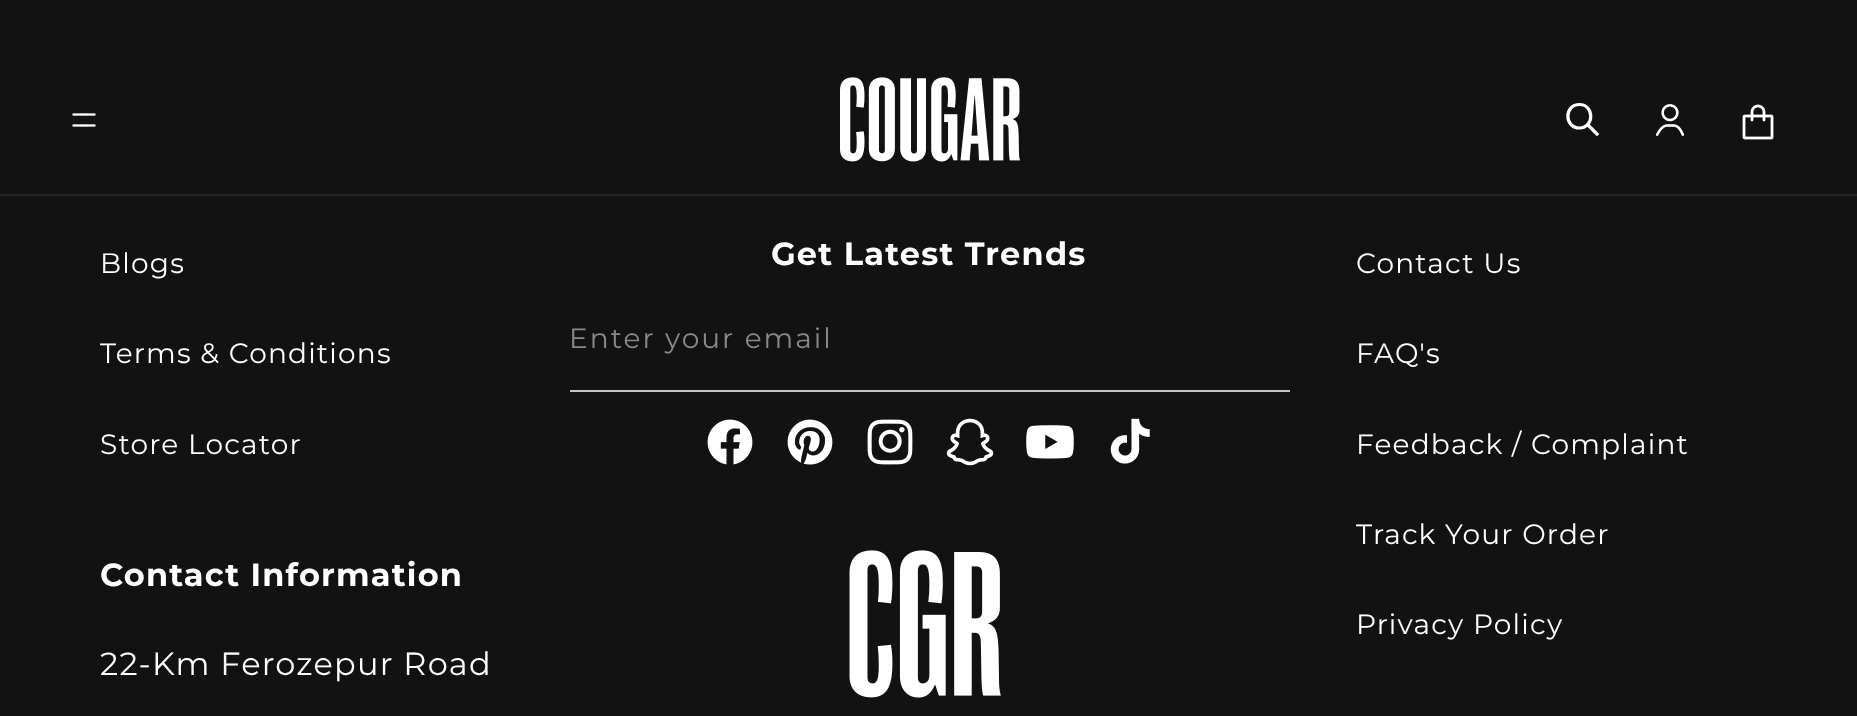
<?xml version="1.0" encoding="UTF-8"?>
<svg xmlns="http://www.w3.org/2000/svg" width="1857" height="716">
    <rect width="100%" height="100%" fill="#121212"/>
    <rect x="0" y="194" width="1857" height="2" fill="#252525"/>
    <image x="72" y="113" width="24" height="14" href="img_01.png"/>
    <image x="840" y="77" width="180" height="85" href="img_02.png"/>
    <path d="M 1597 134 L 1587.5 124.5 M 1579.5 128 C 1594.5 128 1594.5 104.5 1579.5 104.5 C 1564 104.5 1564 128 1579.5 128 Z" fill="none" stroke="#FFFFFF" stroke-width="3.2" stroke-linecap="square"/>
    <image x="1655" y="104" width="30" height="32" href="img_03.png"/>
    <image x="1742" y="104" width="32" height="36" href="img_04.png"/>
    <text x="100" y="273" font-family="Montserrat" font-size="28" letter-spacing="1.2" fill="#FFFFFF">Blogs</text>
    <text x="100" y="363" font-family="Montserrat" font-size="28" letter-spacing="1.2" fill="#FFFFFF">Terms &amp; Conditions</text>
    <text x="100" y="454" font-family="Montserrat" font-size="28" letter-spacing="1.2" fill="#FFFFFF">Store Locator</text>
    <text x="100" y="586" font-family="Montserrat" font-size="32" font-weight="700" letter-spacing="1.2" fill="#FFFFFF">Contact Information</text>
    <text x="100" y="675" font-family="Montserrat" font-size="32" letter-spacing="1.2" fill="#FFFFFF">22-Km Ferozepur Road</text>
    <text x="771" y="265" font-family="Montserrat" font-size="32" font-weight="700" letter-spacing="1.2" fill="#FFFFFF">Get Latest Trends</text>
    <rect x="570" y="390" width="720" height="2" fill="#C4C4C4"/>
    <text x="569" y="348" font-family="Montserrat" font-size="28" letter-spacing="2" fill="#898989">Enter your email</text>
    <image x="707" y="419" width="46" height="46" href="img_05.png"/>
    <image x="787" y="419" width="46" height="46" href="img_06.png"/>
    <image x="867" y="419" width="46" height="46" href="img_07.png"/>
    <image x="946" y="418" width="48" height="48" href="img_08.png"/>
    <image x="1026" y="425" width="48" height="34" href="img_09.png"/>
    <image x="1110" y="418" width="40" height="46" href="img_10.png"/>
    <image x="849" y="550" width="152" height="148" href="img_11.png"/>
    <text x="1356" y="273" font-family="Montserrat" font-size="28" letter-spacing="1.2" fill="#FFFFFF">Contact Us</text>
    <text x="1356" y="363" font-family="Montserrat" font-size="28" letter-spacing="1.2" fill="#FFFFFF">FAQ's</text>
    <text x="1356" y="454" font-family="Montserrat" font-size="28" letter-spacing="1.2" fill="#FFFFFF">Feedback / Complaint</text>
    <text x="1356" y="544" font-family="Montserrat" font-size="28" letter-spacing="1.2" fill="#FFFFFF">Track Your Order</text>
    <text x="1356" y="634" font-family="Montserrat" font-size="28" letter-spacing="1.2" fill="#FFFFFF">Privacy Policy</text>
</svg>
